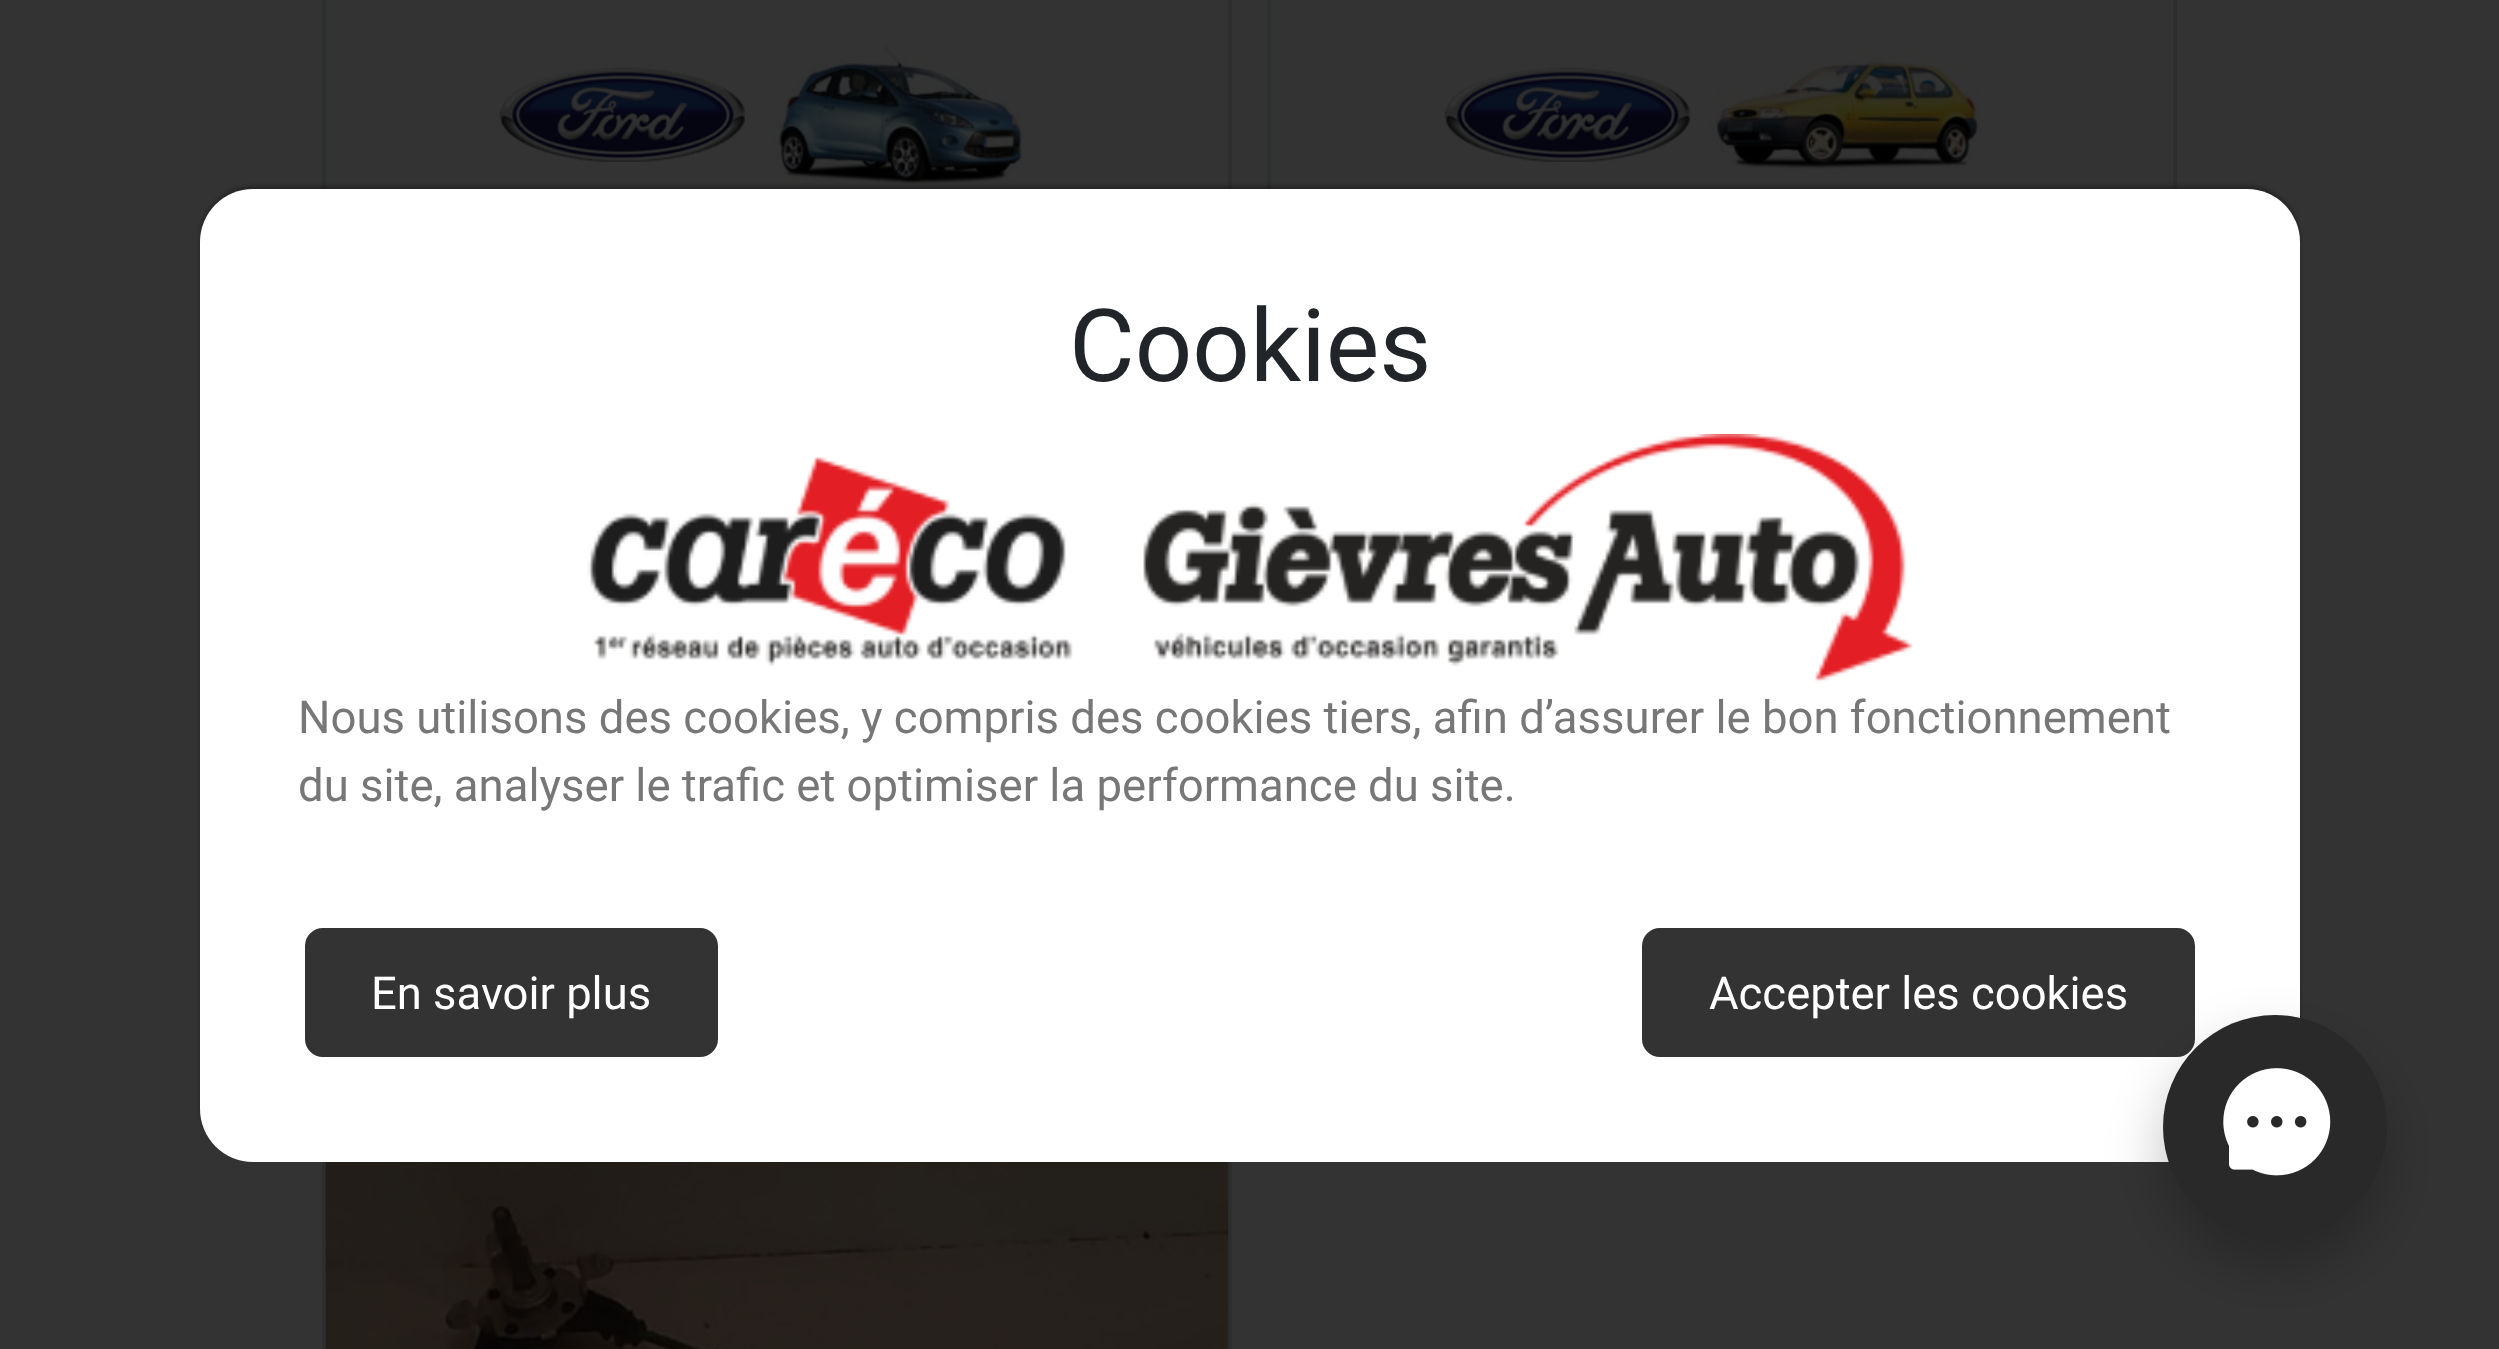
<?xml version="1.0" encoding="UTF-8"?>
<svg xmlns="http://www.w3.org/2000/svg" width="2499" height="1349">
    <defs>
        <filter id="blur1" x="-50%" y="-200%" width="200%" height="500%"><feGaussianBlur stdDeviation="2"/></filter>
        <filter id="blur2" x="-50%" y="-200%" width="200%" height="500%"><feGaussianBlur stdDeviation="28"/></filter>
    </defs>
    <rect width="100%" height="100%" fill="#333333"/>
    <rect x="324" y="-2" width="906" height="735" fill="none" stroke="#2D2E2E" stroke-width="4"/>
    <image x="499" y="67" width="246" height="95" href="img_01.png"/>
    <image x="771" y="45" width="255" height="142" href="img_02.png"/>
    <rect x="1269" y="-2" width="906" height="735" fill="none" stroke="#2D2E2E" stroke-width="4"/>
    <image x="1444" y="67" width="247" height="95" href="img_03.png"/>
    <image x="1708" y="46" width="280" height="128" href="img_04.png"/>
    <rect x="324" y="793" width="906" height="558" fill="none" stroke="#2D2E2E" stroke-width="4"/>
    <image x="325" y="1162" width="904" height="187" href="img_05.png"/>
    <rect x="200" y="186" width="2100" height="973" rx="53" fill="#000000" fill-opacity="0.3" filter="url(#blur1)"/>
    <rect x="200" y="189" width="2100" height="973" rx="53" fill="#FFFFFF"/>
    <text x="1069" y="381" font-family="Roboto" font-size="101" fill="#212529">Cookies</text>
    <image x="587" y="434" width="1326" height="249" href="img_06.png"/>
    <text font-family="Roboto" font-size="45.5" fill="#777777">
        <tspan x="298" y="733">Nous utilisons des cookies, y compris des cookies tiers, afin d’assurer le bon fonctionnement</tspan>
        <tspan x="298" y="801">du site, analyser le trafic et optimiser la performance du site.</tspan>
    </text>
    <rect x="307" y="930" width="409" height="125" rx="16" fill="#333333" stroke="#333333" stroke-width="4"/>
    <text x="371" y="1009" font-family="Roboto" font-size="45.4" fill="#FFFFFF">En savoir plus</text>
    <rect x="1644" y="930" width="549" height="125" rx="16" fill="#333333" stroke="#333333" stroke-width="4"/>
    <text x="1709" y="1009" font-family="Roboto" font-size="45.4" fill="#FFFFFF">Accepter les cookies</text>
    <rect x="2163" y="1043" width="224" height="224" rx="112" fill="#000000" fill-opacity="0.24" filter="url(#blur2)"/>
    <circle cx="2275" cy="1127" r="112" fill="#292929"/>
    <image x="2223" y="1068" width="108" height="108" href="img_07.png"/>
</svg>
